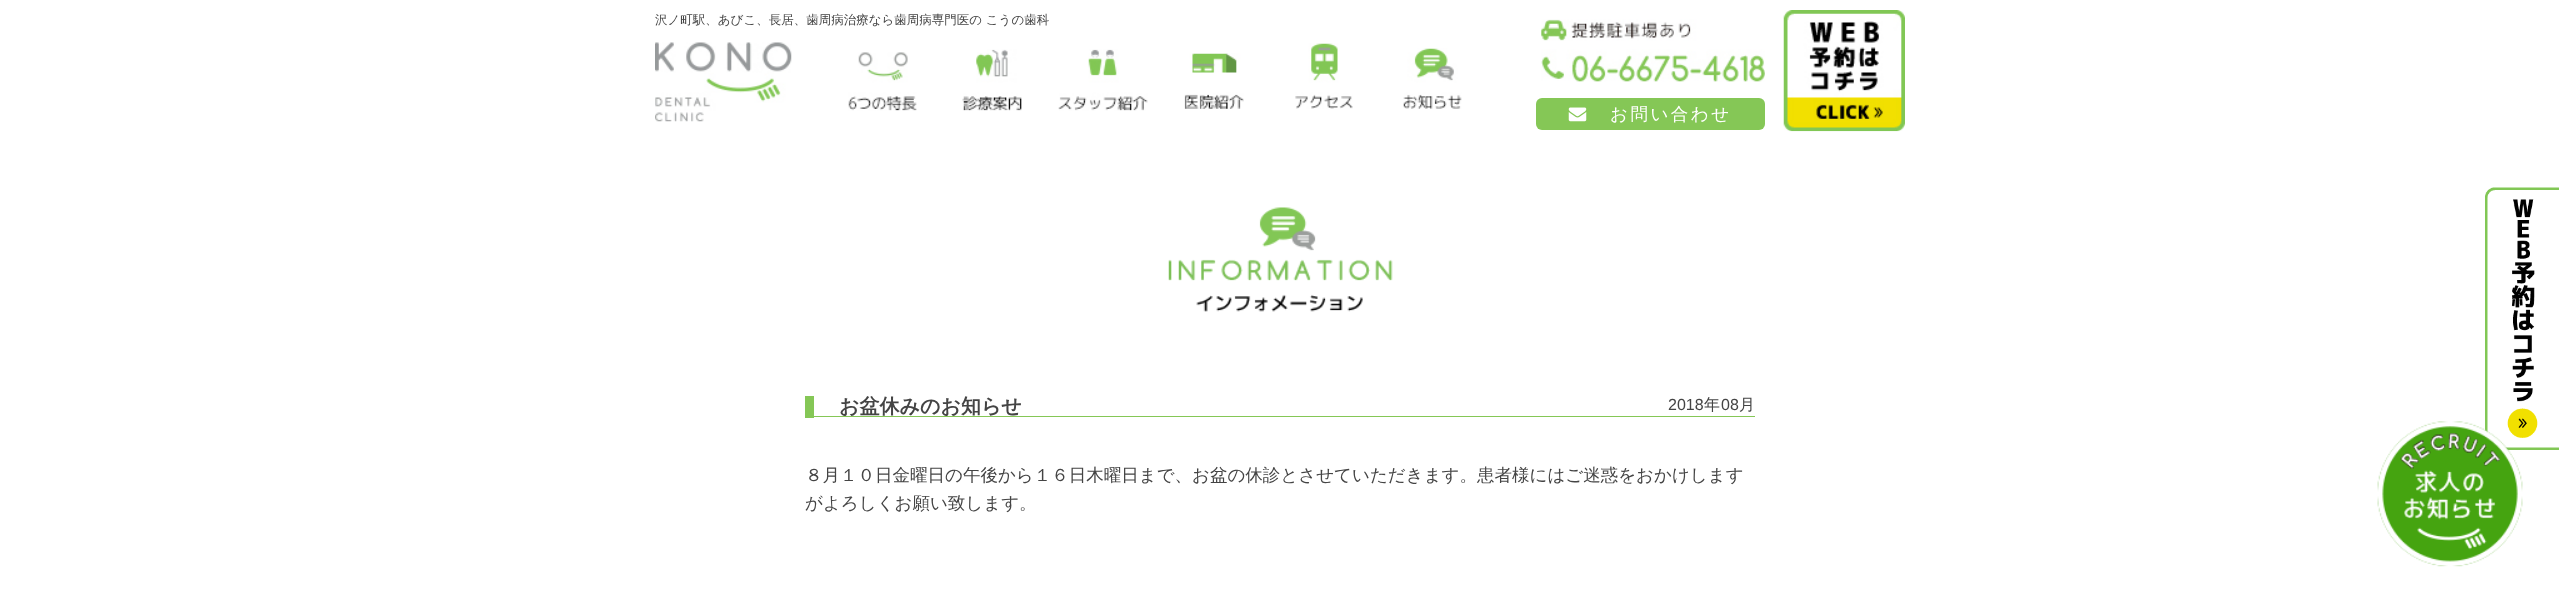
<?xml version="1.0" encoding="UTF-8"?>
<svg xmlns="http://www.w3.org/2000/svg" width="2559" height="603">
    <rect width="100%" height="100%" fill="#FFFFFF"/>
    <text x="655" y="24" font-family="WenQuanYi Zen Hei" font-size="12.5" font-weight="500" fill="#444444">沢ノ町駅、あびこ、長居、歯周病治療なら歯周病専門医の こうの歯科</text>
    <image x="655" y="42" width="137" height="80" href="img_01.png"/>
    <image x="848" y="52" width="69" height="59" href="img_02.png"/>
    <image x="962" y="49" width="60" height="62" href="img_03.png"/>
    <image x="1058" y="49" width="90" height="62" href="img_04.png"/>
    <image x="1184" y="53" width="60" height="56" href="img_05.png"/>
    <image x="1295" y="43" width="58" height="66" href="img_06.png"/>
    <image x="1403" y="48" width="59" height="61" href="img_07.png"/>
    <image x="1541" y="19" width="224" height="63" href="img_08.png"/>
    <rect x="1536" y="98" width="229" height="32" rx="6" fill="#85C756"/>
    <image x="1568" y="107" width="19" height="15" href="img_09.png"/>
    <text x="1610" y="120" font-family="WenQuanYi Zen Hei" font-size="17.5" font-weight="500" letter-spacing="2.5" fill="#FFFFFF">お問い合わせ</text>
    <image x="1783" y="10" width="122" height="122" href="img_10.png"/>
    <image x="1168" y="207" width="225" height="105" href="img_11.png"/>
    <rect x="814" y="416" width="941" height="1" fill="#85C756"/>
    <rect x="805" y="396" width="9" height="22" fill="#85C756"/>
    <text x="839" y="413" font-family="WenQuanYi Zen Hei" font-size="20" font-weight="700" fill="#444444">お盆休みのお知らせ</text>
    <text x="1668" y="410" font-family="Liberation Sans" font-size="16" fill="#444444">2018</text>
    <text x="1704" y="410" font-family="WenQuanYi Zen Hei" font-size="16" font-weight="500" fill="#444444">年</text>
    <text x="1721" y="410" font-family="Liberation Sans" font-size="16" fill="#444444">08</text>
    <text x="1739" y="410" font-family="WenQuanYi Zen Hei" font-size="16" font-weight="500" fill="#444444">月</text>
    <text font-family="WenQuanYi Zen Hei" font-size="17.5" font-weight="500" fill="#444444">
        <tspan x="805" y="481">８月１０日金曜日の午後から１６日木曜日まで、お盆の休診とさせていただきます。患者様にはご迷惑をおかけします</tspan>
        <tspan x="805" y="509">がよろしくお願い致します。</tspan>
    </text>
    <image x="2485" y="187" width="74" height="263" href="img_12.png"/>
    <image x="2377" y="421" width="146" height="146" href="img_13.png"/>
</svg>
